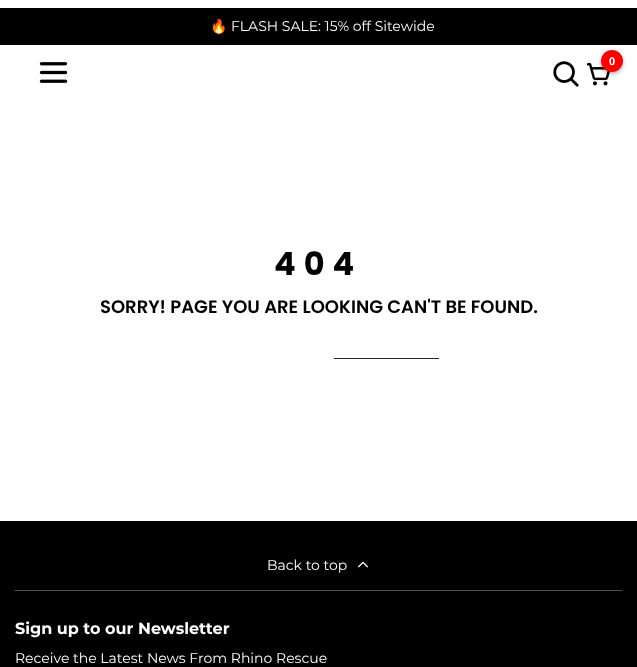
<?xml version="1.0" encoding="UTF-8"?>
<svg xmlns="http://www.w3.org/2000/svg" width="637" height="667">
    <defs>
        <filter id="blur1" x="-50%" y="-200%" width="200%" height="500%"><feGaussianBlur stdDeviation="2"/></filter>
    </defs>
    <rect width="100%" height="100%" fill="#FFFFFF"/>
    <rect x="0" y="8" width="637" height="37" fill="#000000"/>
    <text x="210" y="31" font-family="Noto Color Emoji" font-size="14" fill="#FFFFFF">🔥</text>
    <text x="231" y="31" font-family="Montserrat" font-size="14" fill="#FFFFFF">FLASH SALE: 15% off Sitewide</text>
    <image x="39" y="62" width="29" height="21" href="img_01.png"/>
    <image x="553" y="61" width="26" height="26" href="img_02.png"/>
    <image x="586" y="63" width="24" height="23" href="img_03.png"/>
    <rect x="601" y="52" width="22" height="22" rx="11" fill="#000000" fill-opacity="0.3" filter="url(#blur1)"/>
    <circle cx="612" cy="61" r="11" fill="#FF0000"/>
    <text x="609" y="65" font-family="Liberation Sans" font-size="11" font-weight="700" fill="#FFFFFF">0</text>
    <text x="274" y="275" font-family="Poppins" font-size="32" font-weight="700" letter-spacing="8" fill="#000000">404</text>
    <text x="100" y="313" font-family="Poppins" font-size="18" font-weight="600" fill="#000000">SORRY! PAGE YOU ARE LOOKING CAN'T BE FOUND.</text>
    <rect x="334" y="358" width="105" height="1" fill="#222222"/>
    <rect x="0" y="521" width="637" height="146" fill="#000000"/>
    <rect x="15" y="590" width="607" height="1" fill="#515151"/>
    <text x="267" y="570" font-family="Montserrat" font-size="14" fill="#FFFFFF">Back to top</text>
    <image x="358" y="561" width="10" height="7" href="img_04.png"/>
    <text x="15" y="634" font-family="Montserrat" font-size="16" font-weight="700" fill="#FFFFFF">Sign up to our Newsletter</text>
    <text x="15" y="663" font-family="Montserrat" font-size="14" fill="#FFFFFF">Receive the Latest News From Rhino Rescue</text>
</svg>
